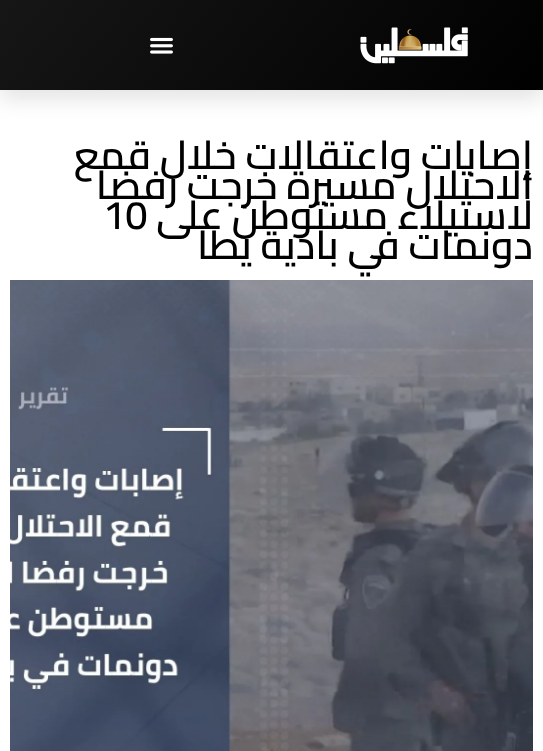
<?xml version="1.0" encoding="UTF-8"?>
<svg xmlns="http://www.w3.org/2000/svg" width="543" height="751">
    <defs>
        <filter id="blur1" x="-50%" y="-200%" width="200%" height="500%"><feGaussianBlur stdDeviation="10"/></filter>
        <linearGradient id="g1" gradientUnits="userSpaceOnUse" x1="90" y1="-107" x2="453" y2="197"><stop offset="0" stop-color="#161616"/><stop offset="1" stop-color="#000000"/></linearGradient>
    </defs>
    <rect width="100%" height="100%" fill="#FFFFFF"/>
    <rect x="0" y="10" width="543" height="90" fill="#000000" fill-opacity="0.1" filter="url(#blur1)"/>
    <rect x="0" y="0" width="543" height="90" fill="url(#g1)"/>
    <image x="360" y="27" width="108" height="37" href="img_01.png"/>
    <image x="150" y="37" width="23" height="17" href="img_02.png"/>
    <text font-family="Cairo" font-size="40" font-weight="600" direction="rtl" fill="#000000">
        <tspan x="533" y="169">إصابات واعتقالات خلال قمع</tspan>
        <tspan x="533" y="199">الاحتلال مسيرة خرجت رفضا</tspan>
        <tspan x="533" y="229">لاستيلاء مستوطن على</tspan>
    </text>
    <text x="103" y="229" font-family="Cairo" font-size="40" font-weight="600" fill="#000000">10</text>
    <text x="533" y="259" font-family="Cairo" font-size="40" font-weight="600" direction="rtl" fill="#000000">دونمات في بادية يطا</text>
    <image x="10" y="280" width="523" height="471" href="img_03.png"/>
</svg>
